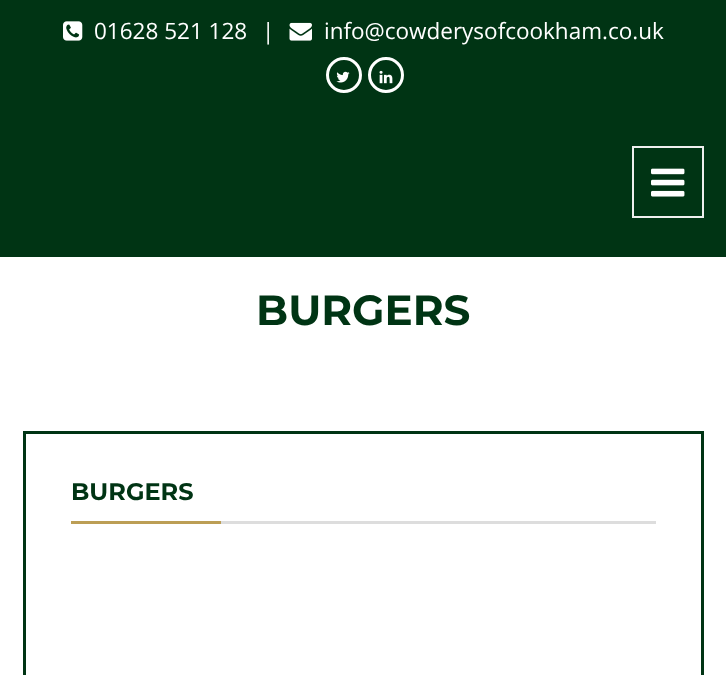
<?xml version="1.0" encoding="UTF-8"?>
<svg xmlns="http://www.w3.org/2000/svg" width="726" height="675">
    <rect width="100%" height="100%" fill="#FFFFFF"/>
    <rect x="0" y="0" width="726" height="257" fill="#003414"/>
    <image x="63" y="21" width="20" height="20" href="img_01.png"/>
    <text x="94" y="39" font-family="Open Sans" font-size="22.5" fill="#FFFFFF">01628 521 128</text>
    <text x="262" y="39" font-family="Open Sans" font-size="22.5" fill="#FFFFFF">|</text>
    <image x="289" y="22" width="23" height="19" href="img_02.png"/>
    <text x="324" y="39" font-family="Open Sans" font-size="22.5" fill="#FFFFFF">info@cowderysofcookham.co.uk</text>
    <circle cx="344" cy="75" r="16.5" fill="none" stroke="#FFFFFF" stroke-width="3"/>
    <image x="336" y="71" width="14" height="12" href="img_03.png"/>
    <circle cx="386" cy="75" r="16.5" fill="none" stroke="#FFFFFF" stroke-width="3"/>
    <image x="379" y="70" width="14" height="14" href="img_04.png"/>
    <rect x="633" y="147" width="70" height="70" fill="none" stroke="#EEEEEE" stroke-width="2"/>
    <image x="651" y="168" width="34" height="29" href="img_05.png"/>
    <text x="256" y="325" font-family="Montserrat" font-size="42" font-weight="700" fill="#003414">BURGERS</text>
    <rect x="24.5" y="432.5" width="678" height="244" fill="none" stroke="#003414" stroke-width="3"/>
    <text x="71" y="500" font-family="Montserrat" font-size="24" font-weight="700" fill="#003414">BURGERS</text>
    <rect x="71" y="521" width="150" height="3" fill="#BC9E55"/>
    <rect x="221" y="521" width="435" height="3" fill="#DDDDDD"/>
</svg>
